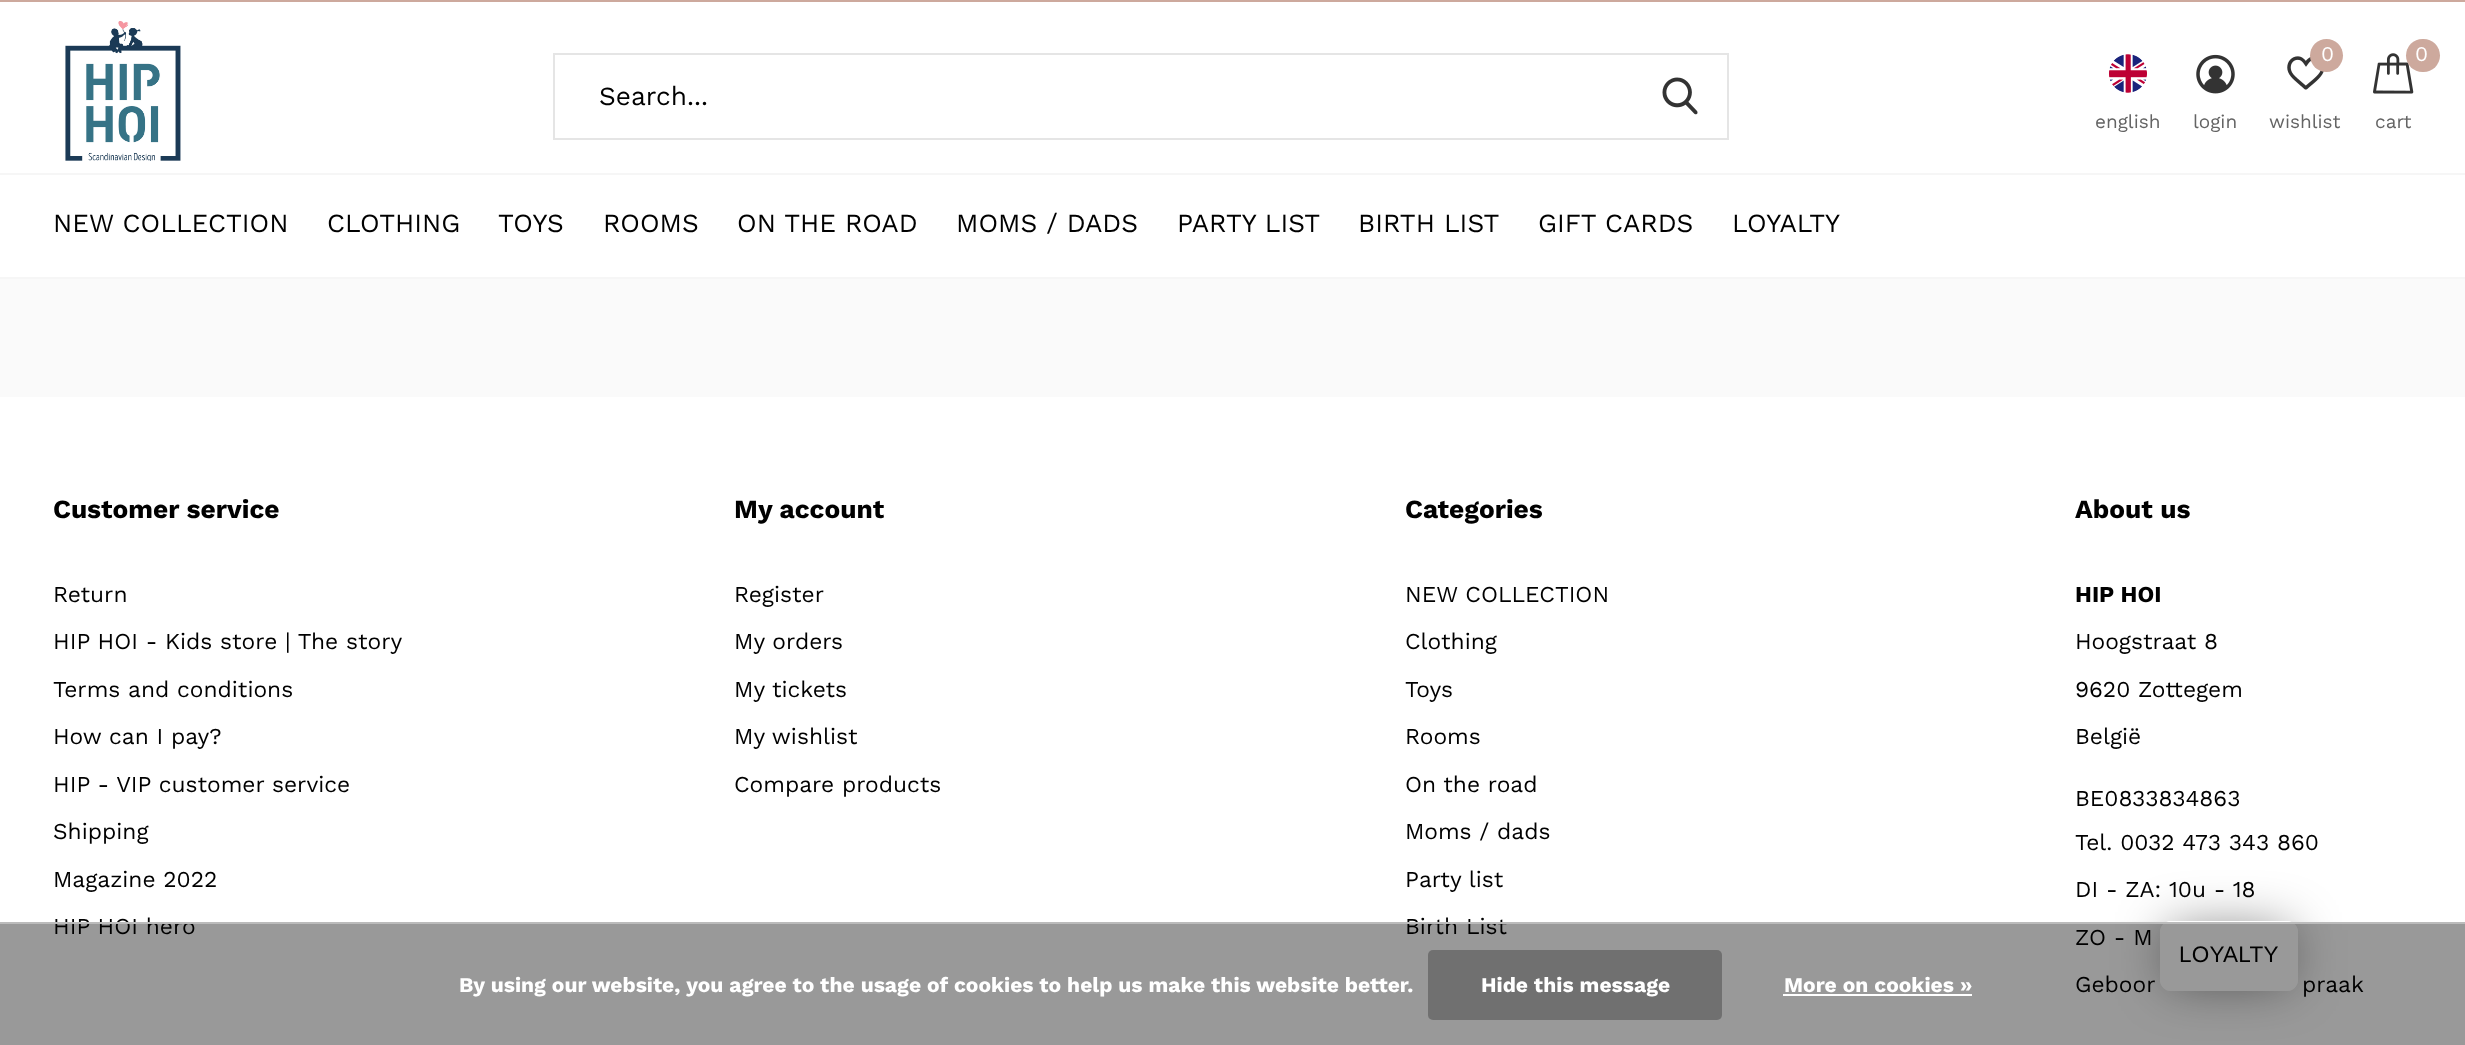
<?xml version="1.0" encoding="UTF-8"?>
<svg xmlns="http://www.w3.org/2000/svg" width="2465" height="1045">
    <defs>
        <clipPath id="clip1"><path d="M 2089 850 H 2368 V 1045 H 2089 Z M 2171 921 H 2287 C 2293 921 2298 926 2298 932 V 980 C 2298 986 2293 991 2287 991 H 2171 C 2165 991 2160 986 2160 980 V 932 C 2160 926 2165 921 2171 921 Z" clip-rule="evenodd"/></clipPath>
        <filter id="blur1" x="-50%" y="-200%" width="200%" height="500%"><feGaussianBlur stdDeviation="26"/></filter>
    </defs>
    <rect width="100%" height="100%" fill="#FFFFFF"/>
    <rect x="0" y="0" width="2465" height="2" fill="#CDA99D"/>
    <image x="65" y="21" width="116" height="140" href="img_01.png"/>
    <image x="2109" y="54" width="38" height="39" href="img_02.png"/>
    <text x="2095" y="128" font-family="Work Sans" font-size="19" fill="#646464">english</text>
    <image x="2196" y="54" width="39" height="40" href="img_03.png"/>
    <text x="2193" y="128" font-family="Work Sans" font-size="19" fill="#646464">login</text>
    <image x="2287" y="56" width="37" height="34" href="img_04.png"/>
    <circle cx="2326.5" cy="55.5" r="16.5" fill="#CDA99D"/>
    <text x="2321" y="61" font-family="Work Sans" font-size="21" fill="#FFFFFF">0</text>
    <text x="2269" y="128" font-family="Work Sans" font-size="19" fill="#646464">wishlist</text>
    <image x="2373" y="53" width="41" height="41" href="img_05.png"/>
    <rect x="2406" y="39" width="34" height="33" rx="16.5" fill="#CDA99D"/>
    <text x="2415" y="61" font-family="Work Sans" font-size="21" fill="#FFFFFF">0</text>
    <text x="2375" y="128" font-family="Work Sans" font-size="19" fill="#646464">cart</text>
    <rect x="0" y="173" width="2465" height="2" fill="#F6F6F6"/>
    <rect x="0" y="277" width="2465" height="2" fill="#F6F6F6"/>
    <text x="53" y="232" font-family="Work Sans" font-size="26.25" fill="#000000">NEW COLLECTION</text>
    <text x="327" y="232" font-family="Work Sans" font-size="26.25" fill="#000000">CLOTHING</text>
    <text x="498" y="232" font-family="Work Sans" font-size="26.25" fill="#000000">TOYS</text>
    <text x="603" y="232" font-family="Work Sans" font-size="26.25" fill="#000000">ROOMS</text>
    <text x="737" y="232" font-family="Work Sans" font-size="26.25" fill="#000000">ON THE ROAD</text>
    <text x="956" y="232" font-family="Work Sans" font-size="26.25" fill="#000000">MOMS / DADS</text>
    <text x="1177" y="232" font-family="Work Sans" font-size="26.25" fill="#000000">PARTY LIST</text>
    <text x="1358" y="232" font-family="Work Sans" font-size="26.25" fill="#000000">BIRTH LIST</text>
    <text x="1538" y="232" font-family="Work Sans" font-size="26.25" fill="#000000">GIFT CARDS</text>
    <text x="1732" y="232" font-family="Work Sans" font-size="26.25" fill="#000000">LOYALTY</text>
    <rect x="554" y="54" width="1174" height="85" fill="none" stroke="#E5E5E5" stroke-width="2"/>
    <text x="599" y="105" font-family="Work Sans" font-size="26.25" fill="#000000">Search...</text>
    <image x="1662" y="77" width="36" height="38" href="img_06.png"/>
    <rect x="0" y="279" width="2465" height="118" fill="#FAFAFA"/>
    <text x="53" y="518" font-family="Work Sans" font-size="26.25" font-weight="700" fill="#000000">Customer service</text>
    <text x="53" y="602" font-family="Work Sans" font-size="22.75" fill="#000000">Return</text>
    <text x="53" y="649" font-family="Work Sans" font-size="22.75" fill="#000000">HIP HOI - Kids store | The story</text>
    <text x="53" y="697" font-family="Work Sans" font-size="22.75" fill="#000000">Terms and conditions</text>
    <text x="53" y="744" font-family="Work Sans" font-size="22.75" fill="#000000">How can I pay?</text>
    <text x="53" y="792" font-family="Work Sans" font-size="22.75" fill="#000000">HIP - VIP customer service</text>
    <text x="53" y="839" font-family="Work Sans" font-size="22.75" fill="#000000">Shipping</text>
    <text x="53" y="887" font-family="Work Sans" font-size="22.75" fill="#000000">Magazine 2022</text>
    <text x="53" y="934" font-family="Work Sans" font-size="22.75" fill="#000000">HIP HOI hero</text>
    <text x="734" y="518" font-family="Work Sans" font-size="26.25" font-weight="700" fill="#000000">My account</text>
    <text x="734" y="602" font-family="Work Sans" font-size="22.75" fill="#000000">Register</text>
    <text x="734" y="649" font-family="Work Sans" font-size="22.75" fill="#000000">My orders</text>
    <text x="734" y="697" font-family="Work Sans" font-size="22.75" fill="#000000">My tickets</text>
    <text x="734" y="744" font-family="Work Sans" font-size="22.75" fill="#000000">My wishlist</text>
    <text x="734" y="792" font-family="Work Sans" font-size="22.75" fill="#000000">Compare products</text>
    <text x="1405" y="518" font-family="Work Sans" font-size="26.25" font-weight="700" fill="#000000">Categories</text>
    <text x="1405" y="602" font-family="Work Sans" font-size="22.75" fill="#000000">NEW COLLECTION</text>
    <text x="1405" y="649" font-family="Work Sans" font-size="22.75" fill="#000000">Clothing</text>
    <text x="1405" y="697" font-family="Work Sans" font-size="22.75" fill="#000000">Toys</text>
    <text x="1405" y="744" font-family="Work Sans" font-size="22.75" fill="#000000">Rooms</text>
    <text x="1405" y="792" font-family="Work Sans" font-size="22.75" fill="#000000">On the road</text>
    <text x="1405" y="839" font-family="Work Sans" font-size="22.75" fill="#000000">Moms / dads</text>
    <text x="1405" y="887" font-family="Work Sans" font-size="22.75" fill="#000000">Party list</text>
    <text x="1405" y="934" font-family="Work Sans" font-size="22.75" fill="#000000">Birth List</text>
    <text x="2075" y="518" font-family="Work Sans" font-size="26.25" font-weight="700" fill="#000000">About us</text>
    <text x="2075" y="602" font-family="Work Sans" font-size="22.75" font-weight="700" fill="#000000">HIP HOI</text>
    <text x="2075" y="649" font-family="Work Sans" font-size="22.75" fill="#000000">Hoogstraat 8</text>
    <text x="2075" y="697" font-family="Work Sans" font-size="22.75" fill="#000000">9620 Zottegem</text>
    <text x="2075" y="744" font-family="Work Sans" font-size="22.75" fill="#000000">België</text>
    <text font-family="Work Sans" font-size="22.75" fill="#000000">
        <tspan x="2075" y="806">BE0833834863</tspan>
        <tspan x="2075" y="850">Tel. 0032 473 343 860</tspan>
    </text>
    <text x="2075" y="897" font-family="Work Sans" font-size="22.75" fill="#000000">DI - ZA:</text>
    <text x="2169" y="897" font-family="Work Sans" font-size="22.75" fill="#000000">10u - 18</text>
    <text x="2075" y="945" font-family="Work Sans" font-size="22.75" fill="#000000">ZO - M</text>
    <text x="2075" y="992" font-family="Work Sans" font-size="22.75" fill="#000000">Geboor</text>
    <text x="2302" y="992" font-family="Work Sans" font-size="22.75" fill="#000000">praak</text>
    <g clip-path="url(#clip1)">
        <rect x="2168" y="929" width="121" height="53" rx="2" fill="#000000" fill-opacity="0.5" filter="url(#blur1)"/>
    </g>
    <rect x="2160" y="921" width="138" height="70" rx="11" fill="#FFFFFF" fill-opacity="0.9"/>
    <text x="2179" y="962" font-family="Liberation Sans" font-size="22.5" letter-spacing="0.25" fill="#000000">LOYALTY</text>
    <rect x="0" y="924" width="2465" height="121" fill="#000000" fill-opacity="0.4"/>
    <rect x="0" y="922" width="2465" height="2" fill="#BBBBBB"/>
    <text x="459" y="992" font-family="Work Sans" font-size="21" font-weight="700" fill="#FFFFFF">By using our website, you agree to the usage of cookies to help us make this website better.</text>
    <rect x="1428" y="950" width="294" height="70" rx="5" fill="#707070"/>
    <text x="1481" y="992" font-family="Work Sans" font-size="21" font-weight="700" fill="#FFFFFF">Hide this message</text>
    <text x="1784" y="992" font-family="Work Sans" font-size="21" font-weight="700" fill="#FFFFFF">More on cookies »</text>
    <rect x="1783" y="994" width="189" height="2" fill="#FFFFFF"/>
</svg>
